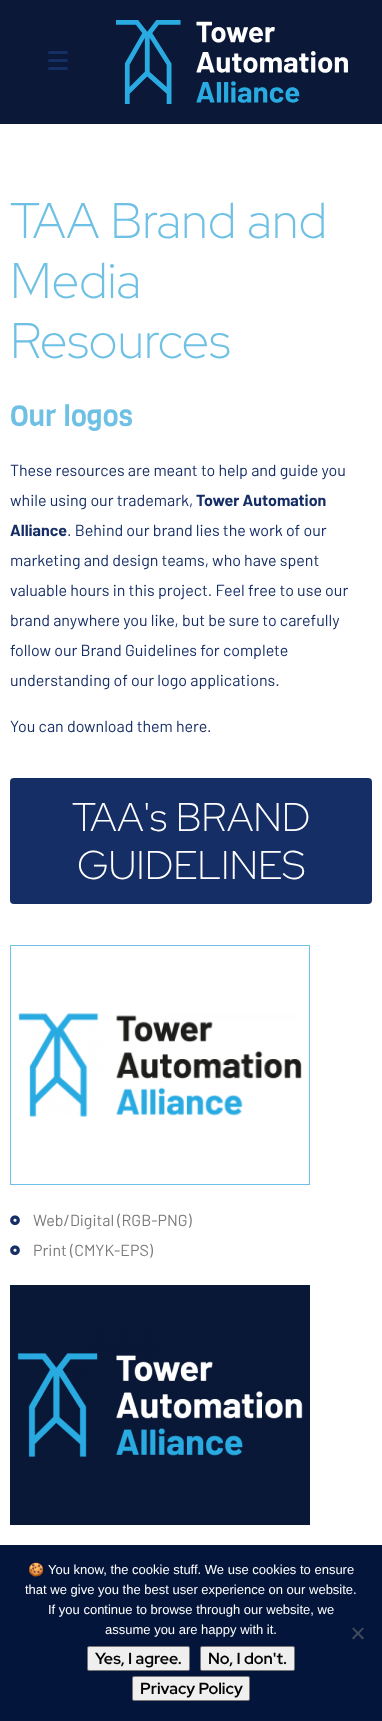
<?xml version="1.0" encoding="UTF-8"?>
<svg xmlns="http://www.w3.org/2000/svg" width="382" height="1721">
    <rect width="100%" height="100%" fill="#FFFFFF"/>
    <rect x="0" y="0" width="382" height="124" fill="#0B1837"/>
    <rect x="48" y="59" width="20" height="3" rx="1.5" fill="#162E66"/>
    <rect x="48" y="51" width="20" height="3" rx="1.5" fill="#162E66"/>
    <rect x="48" y="67" width="20" height="3" rx="1.5" fill="#162E66"/>
    <image x="116" y="20" width="232" height="84" href="img_01.png"/>
    <text font-family="Red Hat Display" font-size="50" font-weight="300" fill="#6EC1E4">
        <tspan x="10" y="238">TAA Brand and</tspan>
        <tspan x="10" y="298">Media</tspan>
        <tspan x="10" y="358">Resources</tspan>
    </text>
    <text x="10" y="426" font-family="Viga" font-size="29" fill="#6EC1E4">Our logos</text>
    <text font-family="Barlow" font-size="16" fill="#162E66">
        <tspan x="10" y="476">These resources are meant to help and guide you</tspan>
        <tspan x="10" y="506">while using our trademark,</tspan>
    </text>
    <text x="196" y="506" font-family="Barlow" font-size="16" font-weight="700" fill="#162E66">Tower Automation</text>
    <text x="10" y="536" font-family="Barlow" font-size="16" font-weight="700" fill="#162E66">Alliance</text>
    <text x="67" y="536" font-family="Barlow" font-size="16" fill="#162E66">. Behind our brand lies the work of our</text>
    <text font-family="Barlow" font-size="16" fill="#162E66">
        <tspan x="10" y="566">marketing and design teams, who have spent</tspan>
        <tspan x="10" y="596">valuable hours in this project. Feel free to use our</tspan>
        <tspan x="10" y="626">brand anywhere you like, but be sure to carefully</tspan>
        <tspan x="10" y="656">follow our Brand Guidelines for complete</tspan>
        <tspan x="10" y="686">understanding of our logo applications.</tspan>
    </text>
    <text x="10" y="732" font-family="Barlow" font-size="16" fill="#162E66">You can download them here.</text>
    <rect x="10" y="778" width="362" height="126" rx="4" fill="#162E66"/>
    <text x="72" y="831" font-family="Red Hat Display" font-size="40" font-weight="300" fill="#FFFFFF">TAA's BRAND</text>
    <text x="77" y="879" font-family="Red Hat Display" font-size="40" font-weight="300" fill="#FFFFFF">GUIDELINES</text>
    <rect x="10.5" y="945.5" width="299" height="239" fill="none" stroke="#6EC1E4"/>
    <image x="18" y="1013" width="284" height="104" href="img_02.png"/>
    <image x="10" y="1215" width="10" height="11" href="img_03.png"/>
    <text x="33" y="1226" font-family="Barlow" font-size="16" fill="#7A7A7A">Web/Digital (RGB-PNG)</text>
    <image x="10" y="1245" width="10" height="11" href="img_03.png"/>
    <text x="33" y="1256" font-family="Barlow" font-size="16" fill="#7A7A7A">Print (CMYK-EPS)</text>
    <image x="10" y="1285" width="300" height="240" href="img_04.png"/>
    <rect x="0" y="1545" width="382" height="176" fill="#03153A"/>
    <text x="28" y="1574" font-family="Noto Color Emoji" font-size="13" fill="#FFFFFF">🍪</text>
    <text x="48" y="1574" font-family="Liberation Sans" font-size="13" fill="#FFFFFF">You know, the cookie stuff. We use cookies to ensure</text>
    <text x="25" y="1594" font-family="Liberation Sans" font-size="13" fill="#FFFFFF">that we give you the best user experience on our website.</text>
    <text x="48" y="1614" font-family="Liberation Sans" font-size="13" fill="#FFFFFF">If you continue to browse through our website, we</text>
    <text x="105" y="1634" font-family="Liberation Sans" font-size="13" fill="#FFFFFF">assume you are happy with it.</text>
    <path d="M 362.5 1627.5 L 364 1628.5 L 353.5 1639.5 L 352 1638 Z" fill="#424B5D"/>
    <path d="M 352 1628.5 L 353.5 1627.5 L 364 1638 L 362.5 1639.5 Z" fill="#424B5D"/>
    <rect x="87.5" y="1646.5" width="102" height="24" rx="1.5" fill="#EFEFEF" stroke="#767676"/>
    <text x="95" y="1664" font-family="Red Hat Display" font-size="16" font-weight="700" fill="#000000">Yes, I agree.</text>
    <rect x="200.5" y="1646.5" width="94" height="24" rx="1.5" fill="#EFEFEF" stroke="#767676"/>
    <text x="208" y="1664" font-family="Red Hat Display" font-size="16" font-weight="700" fill="#000000">No, I don't.</text>
    <rect x="132.5" y="1676.5" width="117" height="24" rx="1.5" fill="#EFEFEF" stroke="#767676"/>
    <text x="140" y="1694" font-family="Red Hat Display" font-size="16" font-weight="700" fill="#000000">Privacy Policy</text>
</svg>
